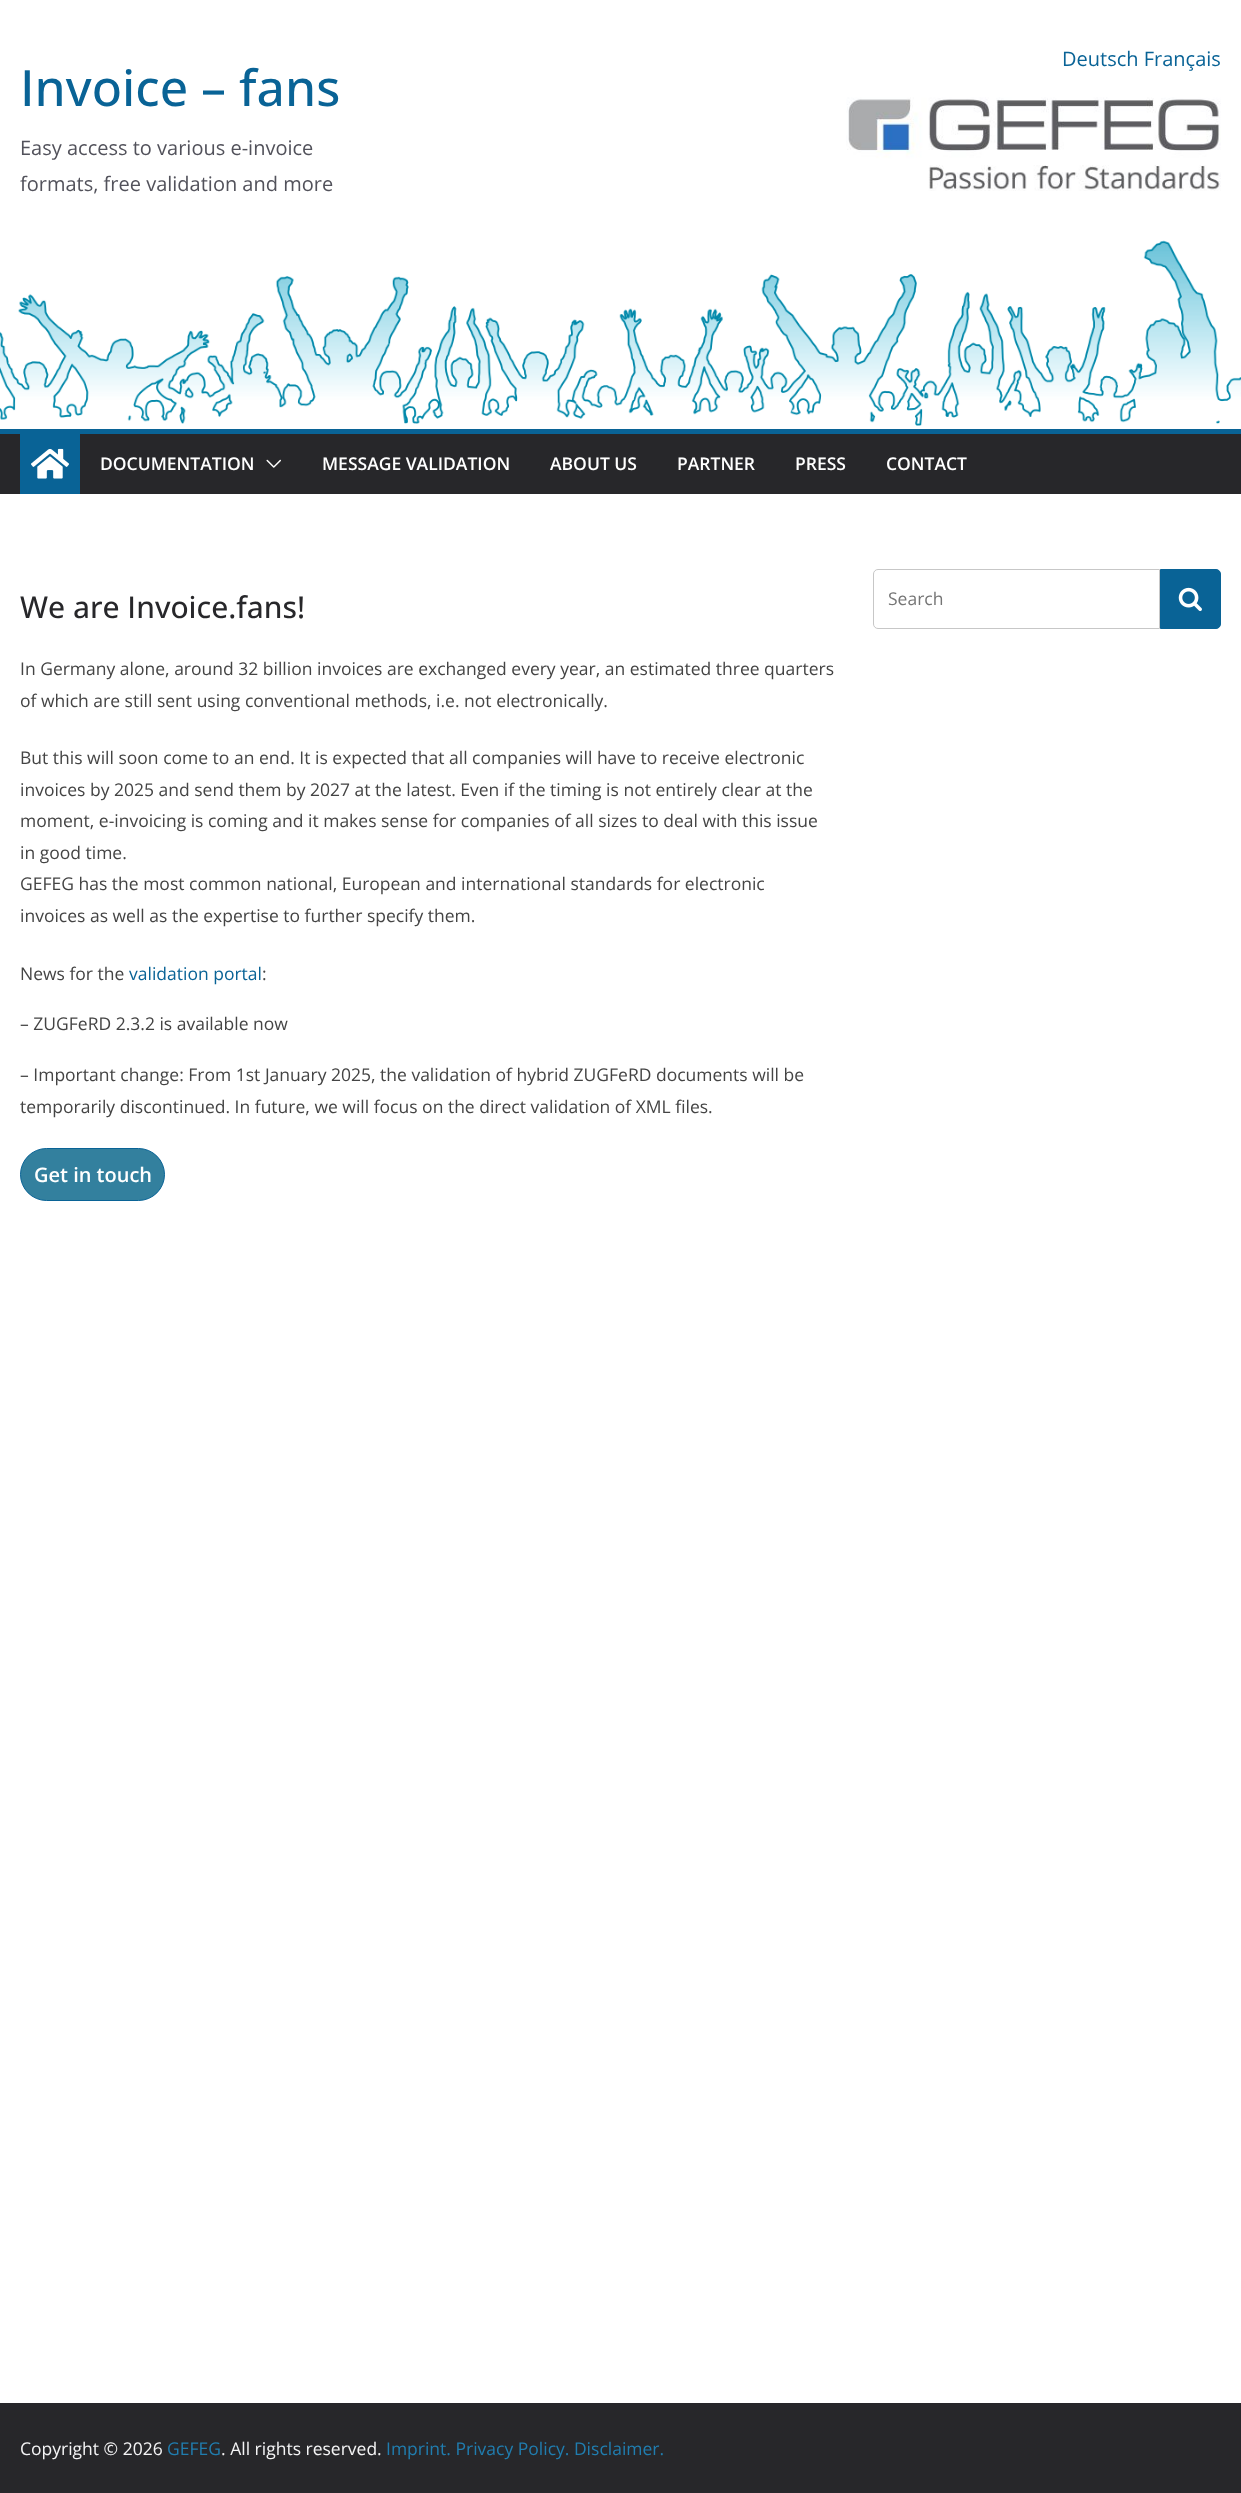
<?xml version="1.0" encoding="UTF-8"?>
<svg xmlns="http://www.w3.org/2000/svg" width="1241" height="2493">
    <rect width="100%" height="100%" fill="#FFFFFF"/>
    <text x="1062" y="66" font-family="Open Sans" font-size="20" fill="#096396">Deutsch Français</text>
    <image x="846" y="97" width="375" height="94" href="img_01.png"/>
    <text x="20" y="106" font-family="Open Sans" font-size="50" font-weight="500" fill="#096396">Invoice – fans</text>
    <text font-family="Open Sans" font-size="20" fill="#52525B">
        <tspan x="20" y="155">Easy access to various e-invoice</tspan>
        <tspan x="20" y="191">formats, free validation and more</tspan>
    </text>
    <image x="0" y="240" width="1241" height="186" href="img_02.png"/>
    <rect x="0" y="434" width="1241" height="60" fill="#27272A"/>
    <rect x="0" y="429" width="1241" height="5" fill="#096396"/>
    <rect x="20" y="434" width="60" height="60" fill="#096396"/>
    <image x="31" y="448" width="38" height="31" href="img_03.png"/>
    <text x="100" y="470" font-family="Open Sans" font-size="17.5" font-weight="600" fill="#FFFFFF">DOCUMENTATION</text>
    <image x="266" y="459" width="15" height="9" href="img_04.png"/>
    <text x="322" y="470" font-family="Open Sans" font-size="17.5" font-weight="600" fill="#FFFFFF">MESSAGE VALIDATION</text>
    <text x="550" y="470" font-family="Open Sans" font-size="17.5" font-weight="600" fill="#FFFFFF">ABOUT US</text>
    <text x="677" y="470" font-family="Open Sans" font-size="17.5" font-weight="600" fill="#FFFFFF">PARTNER</text>
    <text x="795" y="470" font-family="Open Sans" font-size="17.5" font-weight="600" fill="#FFFFFF">PRESS</text>
    <text x="886" y="470" font-family="Open Sans" font-size="17.5" font-weight="600" fill="#FFFFFF">CONTACT</text>
    <text x="20" y="618" font-family="Open Sans" font-size="30" font-weight="500" fill="#27272A">We are Invoice.fans!</text>
    <text font-family="Open Sans" font-size="17.5" fill="#444444">
        <tspan x="20" y="675">In Germany alone, around 32 billion invoices are exchanged every year, an estimated three quarters</tspan>
        <tspan x="20" y="707">of which are still sent using conventional methods, i.e. not electronically.</tspan>
    </text>
    <text font-family="Open Sans" font-size="17.5" fill="#444444">
        <tspan x="20" y="764">But this will soon come to an end. It is expected that all companies will have to receive electronic</tspan>
        <tspan x="20" y="796">invoices by 2025 and send them by 2027 at the latest. Even if the timing is not entirely clear at the</tspan>
        <tspan x="20" y="827">moment, e-invoicing is coming and it makes sense for companies of all sizes to deal with this issue</tspan>
        <tspan x="20" y="859">in good time.</tspan>
        <tspan x="20" y="890">GEFEG has the most common national, European and international standards for electronic</tspan>
        <tspan x="20" y="922">invoices as well as the expertise to further specify them.</tspan>
    </text>
    <text x="20" y="980" font-family="Open Sans" font-size="17.5" fill="#444444">News for the</text>
    <text x="129" y="980" font-family="Open Sans" font-size="17.5" fill="#096396">validation portal</text>
    <text x="262" y="980" font-family="Open Sans" font-size="17.5" fill="#444444">:</text>
    <text x="20" y="1030" font-family="Open Sans" font-size="17.5" fill="#444444">– ZUGFeRD 2.3.2 is available now</text>
    <text font-family="Open Sans" font-size="17.5" fill="#444444">
        <tspan x="20" y="1081">– Important change: From 1st January 2025, the validation of hybrid ZUGFeRD documents will be</tspan>
        <tspan x="20" y="1113">temporarily discontinued. In future, we will focus on the direct validation of XML files.</tspan>
    </text>
    <rect x="20.5" y="1148.5" width="144" height="52" rx="26" fill="#33809E" stroke="#096396"/>
    <text x="34" y="1182" font-family="Open Sans" font-size="20" font-weight="600" fill="#FFFFFF">Get in touch</text>
    <path d="M 878 569.5 H 1159.5 V 628.5 H 878 C 875.5 628.5 873.5 626.5 873.5 624 V 574 C 873.5 571.5 875.5 569.5 878 569.5 Z" fill="none" stroke="#C7C7C7"/>
    <text x="888" y="605" font-family="Open Sans" font-size="17.5" fill="#757575">Search</text>
    <path d="M 1160.5 569.5 H 1216 C 1218.5 569.5 1220.5 571.5 1220.5 574 V 624 C 1220.5 626.5 1218.5 628.5 1216 628.5 H 1160.5 Z" fill="#096396" stroke="#096396"/>
    <image x="1178" y="587" width="24" height="25" href="img_05.png"/>
    <rect x="0" y="2403" width="1241" height="90" fill="#27272A"/>
    <text x="20" y="2455" font-family="Open Sans" font-size="17.5" fill="#F4F4F5">Copyright © 2026</text>
    <text x="167" y="2455" font-family="Open Sans" font-size="17.5" fill="#207DAF">GEFEG</text>
    <text x="221" y="2455" font-family="Open Sans" font-size="17.5" fill="#F4F4F5">. All rights reserved.</text>
    <text x="386" y="2455" font-family="Open Sans" font-size="17.5" fill="#207DAF">Imprint. Privacy Policy. Disclaimer.</text>
</svg>
